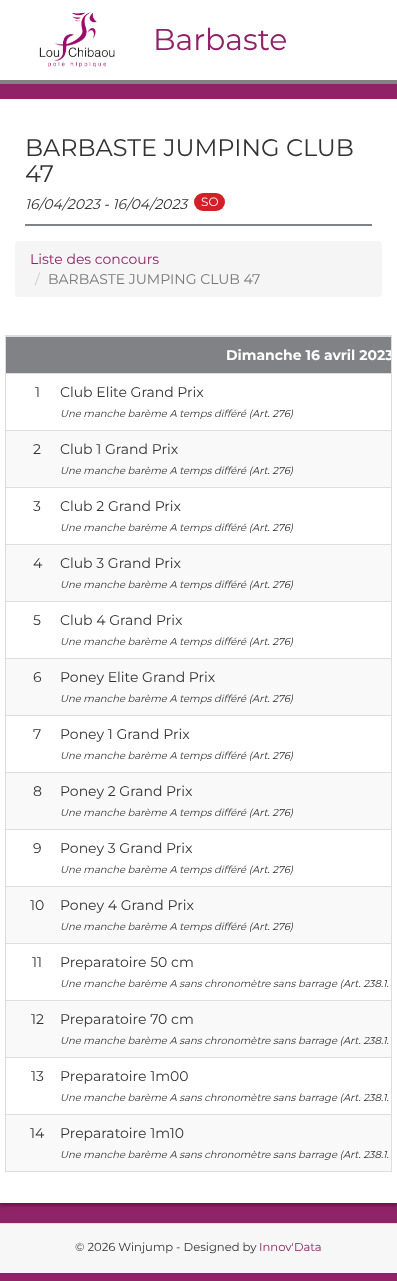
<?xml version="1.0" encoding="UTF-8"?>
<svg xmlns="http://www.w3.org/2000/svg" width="397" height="1281">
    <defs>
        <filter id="blur1" x="-50%" y="-200%" width="200%" height="500%"><feGaussianBlur stdDeviation="1.5"/></filter>
        <clipPath id="clip1"><rect x="6" y="336" width="385" height="835"/></clipPath>
    </defs>
    <rect width="100%" height="100%" fill="#902268"/>
    <rect x="0" y="0" width="397" height="80" fill="#FFFFFF"/>
    <rect x="0" y="80" width="397" height="4" fill="#818286"/>
    <image x="39" y="12" width="76" height="55" href="img_01.png"/>
    <text x="153" y="50" font-family="Montserrat" font-size="30" fill="#902268">Barbaste</text>
    <rect x="0" y="102" width="397" height="1104" fill="#000000" fill-opacity="0.3" filter="url(#blur1)"/>
    <rect x="0" y="99" width="397" height="1104" fill="#FFFFFF"/>
    <rect x="25" y="224" width="347" height="2" fill="#818286"/>
    <text font-family="Montserrat" font-size="24" fill="#333333">
        <tspan x="25" y="156">BARBASTE JUMPING CLUB</tspan>
        <tspan x="25" y="182">47</tspan>
    </text>
    <text x="25" y="209" font-family="Montserrat" font-size="14" font-style="italic" fill="#333333">16/04/2023 - 16/04/2023</text>
    <rect x="194" y="193" width="31" height="18" rx="9" fill="#D22026"/>
    <text x="201" y="206" font-family="Montserrat" font-size="12" fill="#FFFFFF">SO</text>
    <rect x="15" y="241" width="367" height="56" rx="4" fill="#F5F5F5"/>
    <text x="30" y="264" font-family="Montserrat" font-size="14" fill="#902268">Liste des concours</text>
    <text x="35" y="284" font-family="Montserrat" font-size="14" fill="#CCCCCC">/</text>
    <text x="48" y="284" font-family="Montserrat" font-size="14" fill="#777777">BARBASTE JUMPING CLUB 47</text>
    <rect x="5.5" y="335.5" width="386" height="836" fill="none" stroke="#DDDDDD"/>
    <rect x="6" y="337" width="385" height="36" fill="#818286"/>
    <rect x="6" y="336" width="385" height="1" fill="#DDDDDD"/>
    <g clip-path="url(#clip1)">
        <text x="226" y="360" font-family="Montserrat" font-size="14" font-weight="700" fill="#FFFFFF">Dimanche 16 avril 2023</text>
    </g>
    <text x="35" y="397" font-family="Montserrat" font-size="14" fill="#333333">1</text>
    <rect x="6" y="373" width="385" height="1" fill="#DDDDDD"/>
    <text x="60" y="397" font-family="Montserrat" font-size="14" fill="#333333">Club Elite Grand Prix</text>
    <text x="60" y="417" font-family="Montserrat" font-size="10" font-style="italic" fill="#333333">Une manche barème A temps différé (Art. 276)</text>
    <rect x="6" y="431" width="385" height="56" fill="#F9F9F9"/>
    <text x="33" y="454" font-family="Montserrat" font-size="14" fill="#333333">2</text>
    <rect x="6" y="430" width="385" height="1" fill="#DDDDDD"/>
    <text x="60" y="454" font-family="Montserrat" font-size="14" fill="#333333">Club 1 Grand Prix</text>
    <text x="60" y="474" font-family="Montserrat" font-size="10" font-style="italic" fill="#333333">Une manche barème A temps différé (Art. 276)</text>
    <text x="33" y="511" font-family="Montserrat" font-size="14" fill="#333333">3</text>
    <rect x="6" y="487" width="385" height="1" fill="#DDDDDD"/>
    <text x="60" y="511" font-family="Montserrat" font-size="14" fill="#333333">Club 2 Grand Prix</text>
    <text x="60" y="531" font-family="Montserrat" font-size="10" font-style="italic" fill="#333333">Une manche barème A temps différé (Art. 276)</text>
    <rect x="6" y="545" width="385" height="56" fill="#F9F9F9"/>
    <text x="33" y="568" font-family="Montserrat" font-size="14" fill="#333333">4</text>
    <rect x="6" y="544" width="385" height="1" fill="#DDDDDD"/>
    <text x="60" y="568" font-family="Montserrat" font-size="14" fill="#333333">Club 3 Grand Prix</text>
    <text x="60" y="588" font-family="Montserrat" font-size="10" font-style="italic" fill="#333333">Une manche barème A temps différé (Art. 276)</text>
    <text x="33" y="625" font-family="Montserrat" font-size="14" fill="#333333">5</text>
    <rect x="6" y="601" width="385" height="1" fill="#DDDDDD"/>
    <text x="60" y="625" font-family="Montserrat" font-size="14" fill="#333333">Club 4 Grand Prix</text>
    <text x="60" y="645" font-family="Montserrat" font-size="10" font-style="italic" fill="#333333">Une manche barème A temps différé (Art. 276)</text>
    <rect x="6" y="659" width="385" height="56" fill="#F9F9F9"/>
    <text x="33" y="682" font-family="Montserrat" font-size="14" fill="#333333">6</text>
    <rect x="6" y="658" width="385" height="1" fill="#DDDDDD"/>
    <text x="60" y="682" font-family="Montserrat" font-size="14" fill="#333333">Poney Elite Grand Prix</text>
    <text x="60" y="702" font-family="Montserrat" font-size="10" font-style="italic" fill="#333333">Une manche barème A temps différé (Art. 276)</text>
    <text x="33" y="739" font-family="Montserrat" font-size="14" fill="#333333">7</text>
    <rect x="6" y="715" width="385" height="1" fill="#DDDDDD"/>
    <text x="60" y="739" font-family="Montserrat" font-size="14" fill="#333333">Poney 1 Grand Prix</text>
    <text x="60" y="759" font-family="Montserrat" font-size="10" font-style="italic" fill="#333333">Une manche barème A temps différé (Art. 276)</text>
    <rect x="6" y="773" width="385" height="56" fill="#F9F9F9"/>
    <text x="33" y="796" font-family="Montserrat" font-size="14" fill="#333333">8</text>
    <rect x="6" y="772" width="385" height="1" fill="#DDDDDD"/>
    <text x="60" y="796" font-family="Montserrat" font-size="14" fill="#333333">Poney 2 Grand Prix</text>
    <text x="60" y="816" font-family="Montserrat" font-size="10" font-style="italic" fill="#333333">Une manche barème A temps différé (Art. 276)</text>
    <text x="33" y="853" font-family="Montserrat" font-size="14" fill="#333333">9</text>
    <rect x="6" y="829" width="385" height="1" fill="#DDDDDD"/>
    <text x="60" y="853" font-family="Montserrat" font-size="14" fill="#333333">Poney 3 Grand Prix</text>
    <text x="60" y="873" font-family="Montserrat" font-size="10" font-style="italic" fill="#333333">Une manche barème A temps différé (Art. 276)</text>
    <rect x="6" y="887" width="385" height="56" fill="#F9F9F9"/>
    <text x="30" y="910" font-family="Montserrat" font-size="14" fill="#333333">10</text>
    <rect x="6" y="886" width="385" height="1" fill="#DDDDDD"/>
    <text x="60" y="910" font-family="Montserrat" font-size="14" fill="#333333">Poney 4 Grand Prix</text>
    <text x="60" y="930" font-family="Montserrat" font-size="10" font-style="italic" fill="#333333">Une manche barème A temps différé (Art. 276)</text>
    <text x="32" y="967" font-family="Montserrat" font-size="14" fill="#333333">11</text>
    <rect x="6" y="943" width="385" height="1" fill="#DDDDDD"/>
    <text x="60" y="967" font-family="Montserrat" font-size="14" fill="#333333">Preparatoire 50 cm</text>
    <text x="60" y="987" font-family="Montserrat" font-size="10" font-style="italic" fill="#333333">Une manche barème A sans chronomètre sans barrage (Art. 238.1.</text>
    <rect x="6" y="1001" width="385" height="56" fill="#F9F9F9"/>
    <text x="31" y="1024" font-family="Montserrat" font-size="14" fill="#333333">12</text>
    <rect x="6" y="1000" width="385" height="1" fill="#DDDDDD"/>
    <text x="60" y="1024" font-family="Montserrat" font-size="14" fill="#333333">Preparatoire 70 cm</text>
    <text x="60" y="1044" font-family="Montserrat" font-size="10" font-style="italic" fill="#333333">Une manche barème A sans chronomètre sans barrage (Art. 238.1.</text>
    <text x="31" y="1081" font-family="Montserrat" font-size="14" fill="#333333">13</text>
    <rect x="6" y="1057" width="385" height="1" fill="#DDDDDD"/>
    <text x="60" y="1081" font-family="Montserrat" font-size="14" fill="#333333">Preparatoire 1m00</text>
    <text x="60" y="1101" font-family="Montserrat" font-size="10" font-style="italic" fill="#333333">Une manche barème A sans chronomètre sans barrage (Art. 238.1.</text>
    <rect x="6" y="1115" width="385" height="56" fill="#F9F9F9"/>
    <text x="30" y="1138" font-family="Montserrat" font-size="14" fill="#333333">14</text>
    <rect x="6" y="1114" width="385" height="1" fill="#DDDDDD"/>
    <text x="60" y="1138" font-family="Montserrat" font-size="14" fill="#333333">Preparatoire 1m10</text>
    <text x="60" y="1158" font-family="Montserrat" font-size="10" font-style="italic" fill="#333333">Une manche barème A sans chronomètre sans barrage (Art. 238.1.</text>
    <rect x="0" y="1224" width="397" height="49" fill="#F7F7F7"/>
    <rect x="0" y="1223" width="397" height="1" fill="#DFDFDF"/>
    <text x="75" y="1251" font-family="Montserrat" font-size="11.6" fill="#333333">© 2026 Winjump - Designed by</text>
    <text x="259" y="1251" font-family="Montserrat" font-size="11.6" fill="#902268">Innov'Data</text>
</svg>
